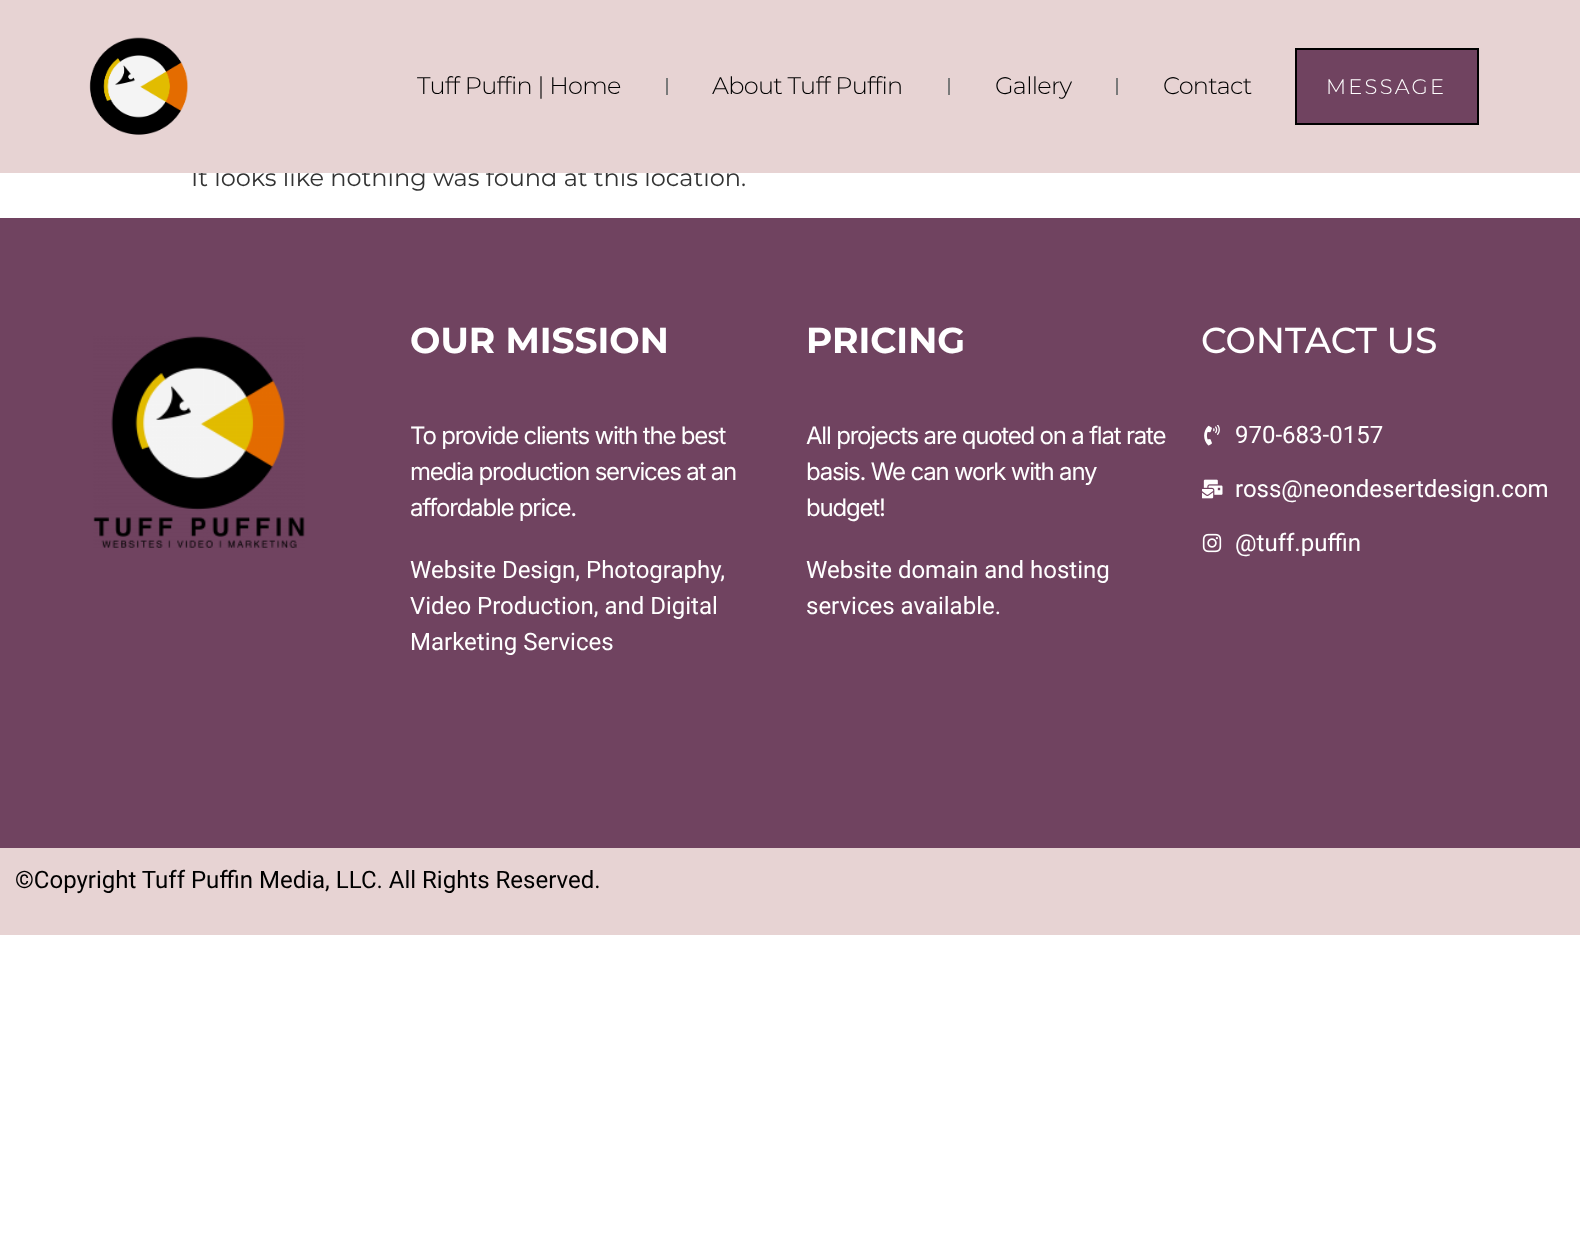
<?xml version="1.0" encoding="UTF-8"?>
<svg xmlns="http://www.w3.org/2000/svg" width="1580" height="1259">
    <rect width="100%" height="100%" fill="#FFFFFF"/>
    <text x="191" y="186" font-family="Montserrat" font-size="24" fill="#333333">It looks like nothing was found at this location.</text>
    <rect x="0" y="0" width="1580" height="173" fill="#E7D3D3"/>
    <image x="89" y="37" width="99" height="98" href="img_01.png"/>
    <text x="417" y="94" font-family="Montserrat" font-size="24" font-weight="300" letter-spacing="-0.7" fill="#000000">Tuff Puffin | Home</text>
    <rect x="666" y="78" width="2" height="17" fill="#7A7A7A"/>
    <text x="712" y="94" font-family="Montserrat" font-size="24" font-weight="300" letter-spacing="-0.7" fill="#000000">About Tuff Puffin</text>
    <rect x="948" y="78" width="2" height="17" fill="#7A7A7A"/>
    <text x="995" y="94" font-family="Montserrat" font-size="24" font-weight="300" letter-spacing="-0.7" fill="#000000">Gallery</text>
    <rect x="1116" y="78" width="2" height="17" fill="#7A7A7A"/>
    <text x="1163" y="94" font-family="Montserrat" font-size="24" font-weight="300" letter-spacing="-0.7" fill="#000000">Contact</text>
    <rect x="1296" y="49" width="182" height="75" fill="#704360" stroke="#000000" stroke-width="2"/>
    <text x="1326" y="94" font-family="Montserrat" font-size="21" font-weight="300" letter-spacing="2.25" fill="#FFFFFF">MESSAGE</text>
    <rect x="0" y="218" width="1580" height="630" fill="#704360"/>
    <image x="93" y="336" width="212" height="212" href="img_02.png"/>
    <text x="410" y="353" font-family="Montserrat" font-size="36" font-weight="700" fill="#FFFFFF">OUR MISSION</text>
    <text font-family="Inter" font-size="24" letter-spacing="-1.2" fill="#FFFFFF">
        <tspan x="410" y="444">To provide clients with the best</tspan>
        <tspan x="410" y="480">media production services at an</tspan>
        <tspan x="410" y="516">affordable price.</tspan>
    </text>
    <text font-family="Roboto" font-size="24" fill="#FFFFFF">
        <tspan x="410" y="578">Website Design, Photography,</tspan>
        <tspan x="410" y="614">Video Production, and Digital</tspan>
        <tspan x="410" y="650">Marketing Services</tspan>
    </text>
    <text x="806" y="353" font-family="Montserrat" font-size="36" font-weight="700" fill="#FFFFFF">PRICING</text>
    <text font-family="Inter" font-size="24" letter-spacing="-1.2" fill="#FFFFFF">
        <tspan x="806" y="444">All projects are quoted on a flat rate</tspan>
        <tspan x="806" y="480">basis. We can work with any</tspan>
        <tspan x="806" y="516">budget!</tspan>
    </text>
    <text font-family="Roboto" font-size="24" fill="#FFFFFF">
        <tspan x="806" y="578">Website domain and hosting</tspan>
        <tspan x="806" y="614">services available.</tspan>
    </text>
    <text x="1201" y="353" font-family="Montserrat" font-size="36" font-weight="500" fill="#FFFFFF">CONTACT US</text>
    <image x="1204" y="425" width="16" height="21" href="img_03.png"/>
    <text x="1235" y="443" font-family="Roboto" font-size="24" fill="#FFFFFF">970-683-0157</text>
    <image x="1202" y="479" width="21" height="20" href="img_04.png"/>
    <text x="1235" y="497" font-family="Roboto" font-size="24" fill="#FFFFFF">ross@neondesertdesign.com</text>
    <image x="1202" y="533" width="20" height="20" href="img_05.png"/>
    <text x="1235" y="551" font-family="Roboto" font-size="24" fill="#FFFFFF">@tuff.puffin</text>
    <rect x="0" y="848" width="1580" height="87" fill="#E7D3D3"/>
    <text x="15" y="888" font-family="Roboto" font-size="24" fill="#000000">©Copyright Tuff Puffin Media, LLC. All Rights Reserved.</text>
</svg>
